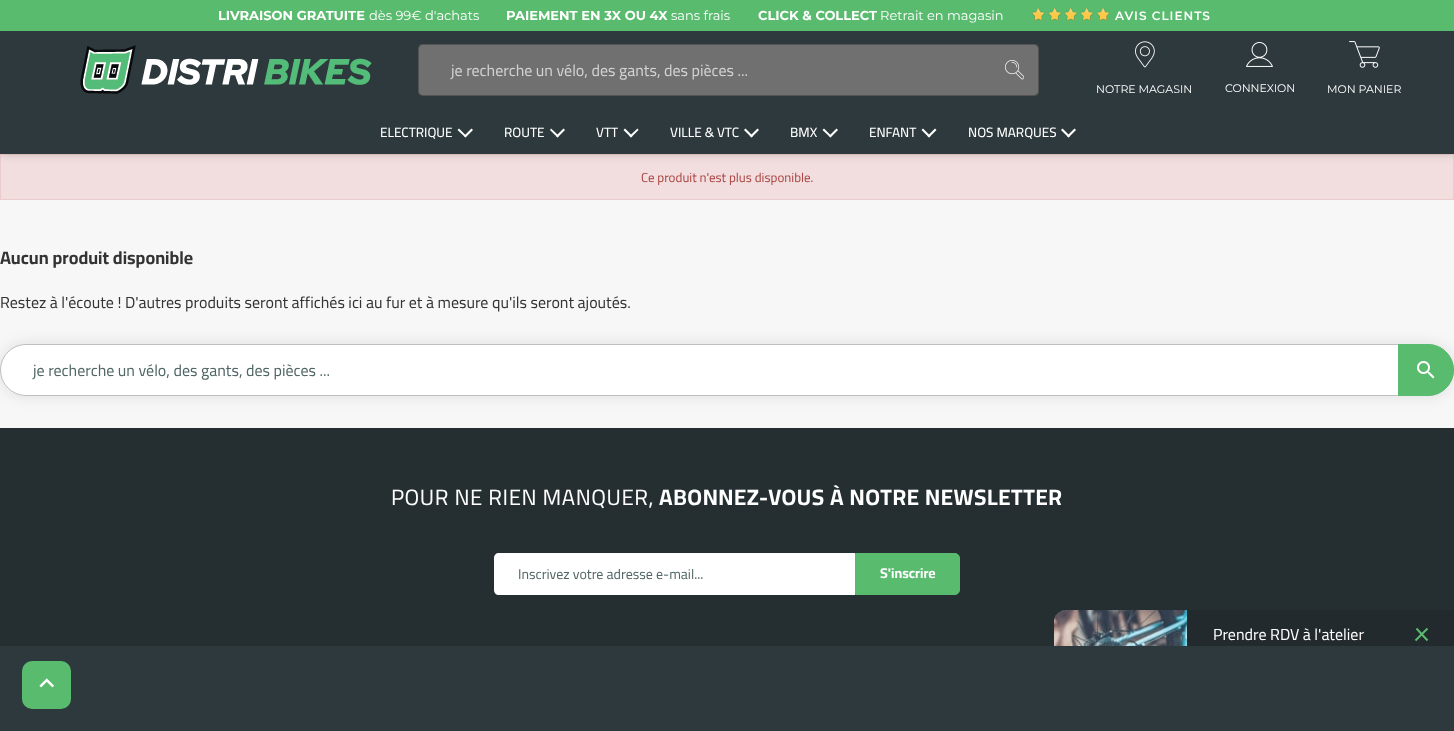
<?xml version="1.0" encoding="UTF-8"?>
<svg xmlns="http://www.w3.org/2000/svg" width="1454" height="731">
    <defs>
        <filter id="blur1" x="-50%" y="-200%" width="200%" height="500%"><feGaussianBlur stdDeviation="5"/></filter>
        <filter id="blur2" x="-50%" y="-200%" width="200%" height="500%"><feGaussianBlur stdDeviation="7.5"/></filter>
    </defs>
    <rect width="100%" height="100%" fill="#252F31"/>
    <rect x="0" y="0" width="1454" height="31" fill="#58BB6E"/>
    <text x="218" y="20" font-family="Montserrat" font-size="13" font-weight="700" fill="#FFFFFF">LIVRAISON GRATUITE</text>
    <text x="369" y="20" font-family="Montserrat" font-size="13" fill="#FFFFFF">dès 99€ d'achats</text>
    <text x="506" y="20" font-family="Montserrat" font-size="13" font-weight="700" fill="#FFFFFF">PAIEMENT EN 3X OU 4X</text>
    <text x="671" y="20" font-family="Montserrat" font-size="13" fill="#FFFFFF">sans frais</text>
    <text x="758" y="20" font-family="Montserrat" font-size="13" font-weight="700" fill="#FFFFFF">CLICK &amp; COLLECT</text>
    <text x="880" y="20" font-family="Montserrat" font-size="13" fill="#FFFFFF">Retrait en magasin</text>
    <image x="1032" y="8" width="78" height="13" href="img_01.png"/>
    <text x="1115" y="20" font-family="Montserrat" font-size="12" font-weight="600" letter-spacing="1" fill="#FFFFFF">AVIS CLIENTS</text>
    <rect x="0.5" y="154.5" width="1453" height="45" fill="#F2DEDE" stroke="#EBCCCC"/>
    <rect x="0" y="109" width="1454" height="45" fill="#000000" fill-opacity="0.19" filter="url(#blur1)"/>
    <rect x="0" y="31" width="1454" height="123" fill="#2E393D"/>
    <image x="80" y="45" width="292" height="49" href="img_02.png"/>
    <rect x="418" y="44" width="621" height="52" rx="5" fill="#707070"/>
    <rect x="418.5" y="44.5" width="620" height="51" rx="4.5" fill="none" stroke="#000000" stroke-opacity="0.25"/>
    <text x="451" y="76" font-family="Cairo" font-size="16" fill="#D3D3D3">je recherche un vélo, des gants, des pièces ...</text>
    <image x="1005" y="60" width="19" height="20" href="img_03.png"/>
    <image x="1135" y="41" width="20" height="27" href="img_04.png"/>
    <text x="1096" y="93" font-family="Montserrat" font-size="11" fill="#FFFFFF">NOTRE MAGASIN</text>
    <image x="1246" y="42" width="27" height="25" href="img_05.png"/>
    <text x="1225" y="92" font-family="Montserrat" font-size="11" fill="#FFFFFF">CONNEXION</text>
    <image x="1349" y="41" width="31" height="27" href="img_06.png"/>
    <text x="1327" y="93" font-family="Montserrat" font-size="11" fill="#FFFFFF">MON PANIER</text>
    <text x="380" y="137" font-family="Cairo" font-size="13.5" font-weight="500" fill="#FFFFFF">ELECTRIQUE</text>
    <path d="M 471.5 128.5 L 473 130 L 465.5 137.5 L 464 136 Z" fill="#FFFFFF"/>
    <path d="M 459 128.5 L 466.5 136 L 465.5 137.5 L 457.5 130 Z" fill="#FFFFFF"/>
    <text x="504" y="137" font-family="Cairo" font-size="13.5" font-weight="500" fill="#FFFFFF">ROUTE</text>
    <path d="M 563.5 128.5 L 565 130 L 557.5 137.5 L 556 136 Z" fill="#FFFFFF"/>
    <path d="M 551 128.5 L 559 136 L 557.5 137.5 L 550 130 Z" fill="#FFFFFF"/>
    <text x="596" y="137" font-family="Cairo" font-size="13.5" font-weight="500" fill="#FFFFFF">VTT</text>
    <path d="M 637.5 128.5 L 638.5 130 L 631 137.5 L 629.5 136 Z" fill="#FFFFFF"/>
    <path d="M 625 128.5 L 632.5 136 L 631 137.5 L 623.5 130 Z" fill="#FFFFFF"/>
    <text x="670" y="137" font-family="Cairo" font-size="13.5" font-weight="500" fill="#FFFFFF">VILLE &amp; VTC</text>
    <path d="M 757.5 128.5 L 759 130 L 751.5 137.5 L 750 136 Z" fill="#FFFFFF"/>
    <path d="M 745.5 128.5 L 753 136 L 751.5 137.5 L 744 130 Z" fill="#FFFFFF"/>
    <text x="790" y="137" font-family="Cairo" font-size="13.5" font-weight="500" fill="#FFFFFF">BMX</text>
    <path d="M 836.5 128.5 L 838 130 L 830.5 137.5 L 829 136 Z" fill="#FFFFFF"/>
    <path d="M 824 128.5 L 831.5 136 L 830.5 137.5 L 822.5 130 Z" fill="#FFFFFF"/>
    <text x="869" y="137" font-family="Cairo" font-size="13.5" font-weight="500" fill="#FFFFFF">ENFANT</text>
    <path d="M 935 128.5 L 936.5 130 L 929 137.5 L 927.5 136 Z" fill="#FFFFFF"/>
    <path d="M 923 128.5 L 930.5 136 L 929 137.5 L 921.5 130 Z" fill="#FFFFFF"/>
    <text x="968" y="137" font-family="Cairo" font-size="13.5" font-weight="500" fill="#FFFFFF">NOS MARQUES</text>
    <path d="M 1074.5 128.5 L 1076 130 L 1068.5 137.5 L 1067 136 Z" fill="#FFFFFF"/>
    <path d="M 1062.5 128.5 L 1070 136 L 1068.5 137.5 L 1061 130 Z" fill="#FFFFFF"/>
    <rect x="0" y="200" width="1454" height="228" fill="#F7F7F7"/>
    <text x="641" y="182" font-family="Cairo" font-size="13" fill="#A94442">Ce produit n'est plus disponible.</text>
    <text x="0" y="264" font-family="Cairo" font-size="18" font-weight="700" fill="#333333">Aucun produit disponible</text>
    <text x="0" y="308" font-family="Cairo" font-size="16" fill="#333333">Restez à l'écoute ! D'autres produits seront affichés ici au fur et à mesure qu'ils seront ajoutés.</text>
    <rect x="0" y="344" width="1454" height="52" rx="26" fill="#000000" fill-opacity="0.1" filter="url(#blur2)"/>
    <rect x="0" y="344" width="1454" height="52" rx="26" fill="#FFFFFF"/>
    <rect x="0.5" y="344.5" width="1453" height="51" rx="25.5" fill="none" stroke="#000000" stroke-opacity="0.25"/>
    <text x="33" y="376" font-family="Cairo" font-size="16" fill="#516765">je recherche un vélo, des gants, des pièces ...</text>
    <path d="M 1398.5 344.5 H 1428 C 1442 344.5 1453.5 356 1453.5 370 C 1453.5 384 1442 395.5 1428 395.5 H 1398.5 Z" fill="#58BB6E" stroke="#58BB6E"/>
    <image x="1417" y="361" width="18" height="18" href="img_07.png"/>
    <path d="M 1066 610 H 1454 V 731 H 1054 V 622 C 1054 615.5 1059.5 610 1066 610 Z" fill="#222A2E"/>
    <image x="1054" y="610" width="133" height="36" href="img_08.png"/>
    <text x="1213" y="640" font-family="Cairo" font-size="16" fill="#FFFFFF">Prendre RDV à l'atelier</text>
    <path d="M 1427.5 628.5 L 1415.5 640.5 M 1416.5 628.5 L 1427.5 640.5" fill="none" stroke="#59BB6E" stroke-width="2"/>
    <text x="391" y="505" font-family="Cairo" font-size="22.25" letter-spacing="0.55" fill="#FFFFFF">POUR NE RIEN MANQUER,</text>
    <text x="659" y="505" font-family="Cairo" font-size="22.25" font-weight="700" letter-spacing="0.55" fill="#FFFFFF">ABONNEZ-VOUS À NOTRE NEWSLETTER</text>
    <path d="M 499 553 H 855 V 595 H 499 C 496 595 494 593 494 590 V 558 C 494 555 496 553 499 553 Z" fill="#FFFFFF"/>
    <text x="518" y="579" font-family="Cairo" font-size="14" fill="#516765">Inscrivez votre adresse e-mail...</text>
    <path d="M 855.5 553.5 H 955 C 957.5 553.5 959.5 555.5 959.5 558 V 590 C 959.5 592.5 957.5 594.5 955 594.5 H 855.5 Z" fill="#58BB6E" stroke="#58BB6E"/>
    <text x="880" y="578" font-family="Cairo" font-size="14" font-weight="700" fill="#FFFFFF">S'inscrire</text>
    <rect x="0" y="646" width="1454" height="85" fill="#2E393D"/>
    <rect x="22" y="661" width="49" height="48" rx="10" fill="#58BB6E"/>
    <image x="39" y="678" width="15" height="10" href="img_09.png"/>
</svg>
